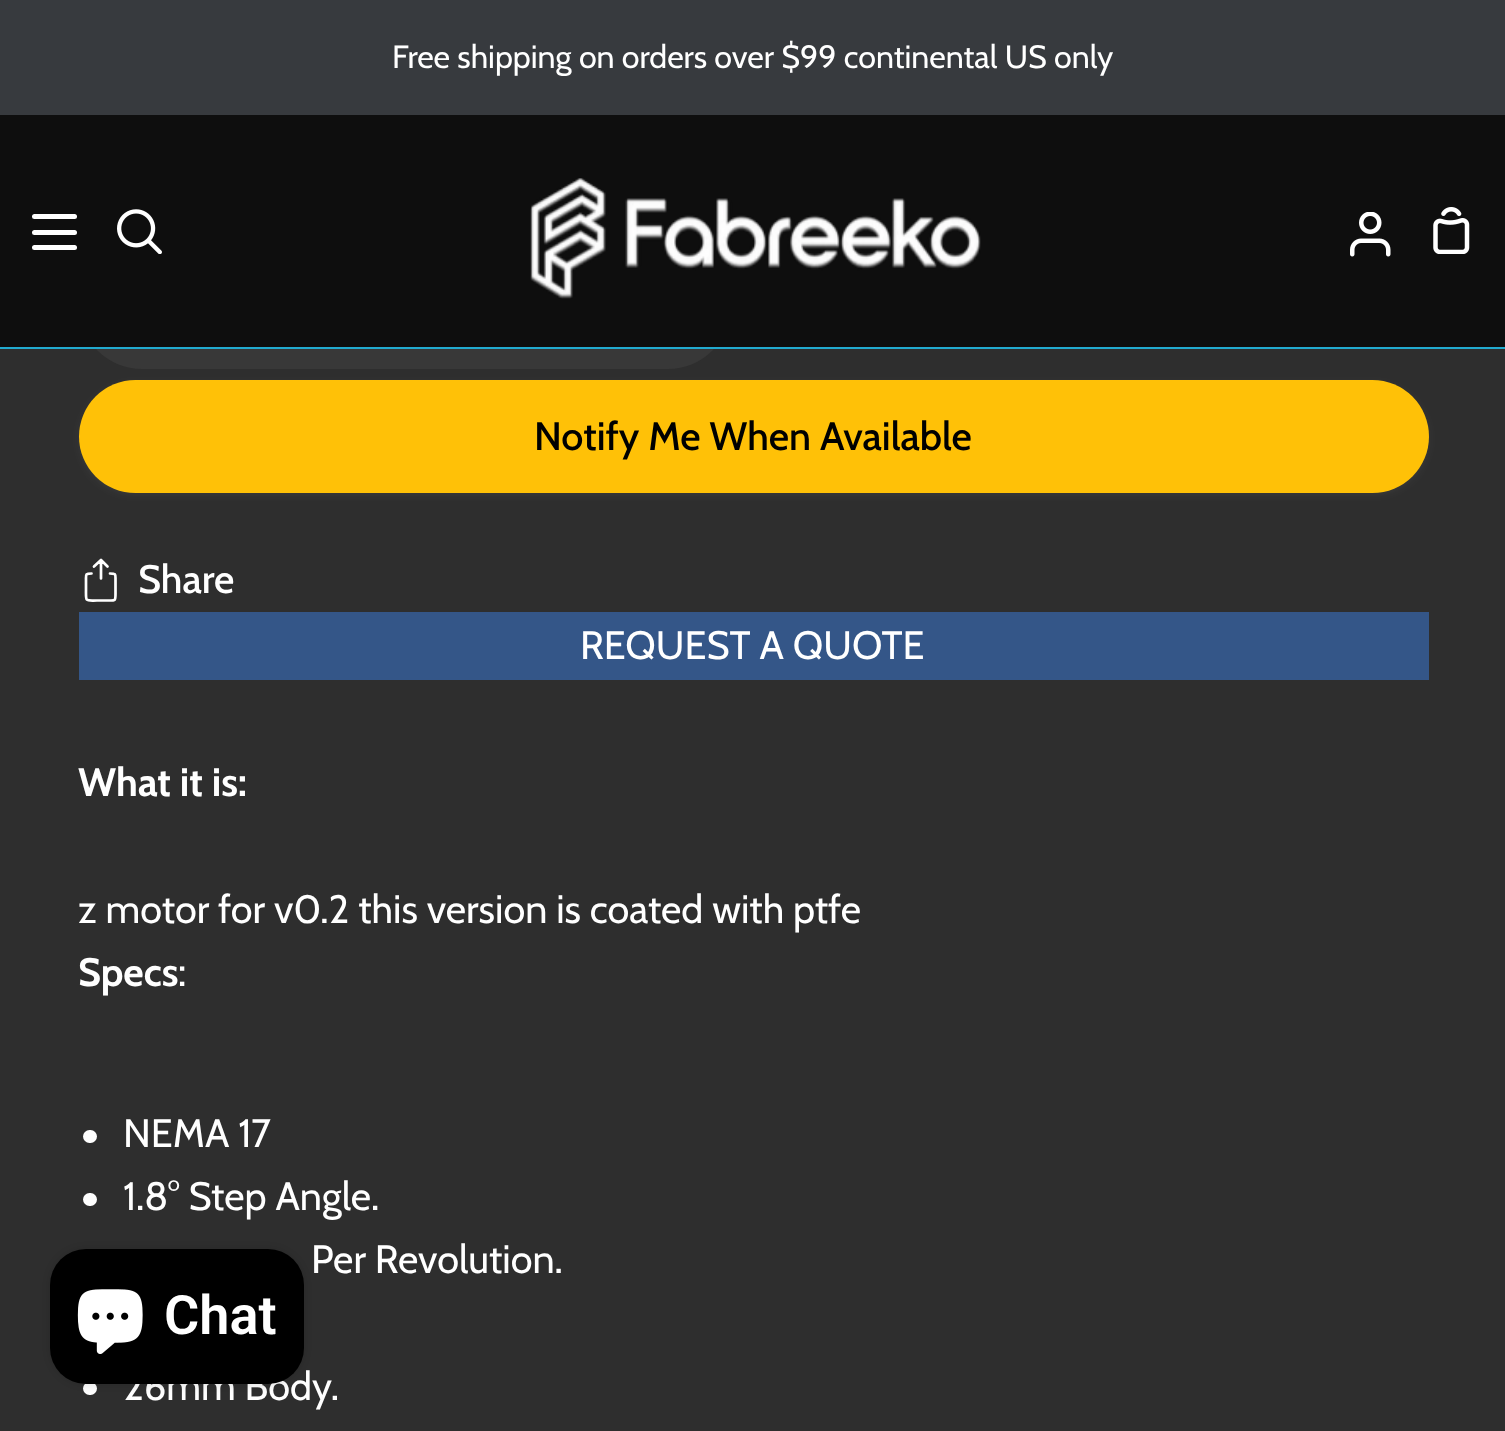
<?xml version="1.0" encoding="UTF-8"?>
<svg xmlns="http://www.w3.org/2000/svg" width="1505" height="1431">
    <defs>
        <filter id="blur1" x="-50%" y="-200%" width="200%" height="500%"><feGaussianBlur stdDeviation="3.5"/></filter>
        <filter id="blur2" x="-50%" y="-200%" width="200%" height="500%"><feGaussianBlur stdDeviation="5.5"/></filter>
    </defs>
    <rect width="100%" height="100%" fill="#2E2E2E"/>
    <rect x="79" y="243" width="652" height="126" rx="63" fill="#383838"/>
    <rect x="0" y="347" width="1505" height="2" fill="#22AACF"/>
    <rect x="0" y="0" width="1505" height="115" fill="#373A3E"/>
    <text x="392" y="68" font-family="Cabin" font-size="32.2" fill="#FFFFFF">Free shipping on orders over $99 continental US only</text>
    <rect x="0" y="115" width="1505" height="232" fill="#0E0E0E"/>
    <rect x="32" y="214" width="45" height="5" rx="2.5" fill="#FFFFFF"/>
    <rect x="32" y="230" width="45" height="5" rx="2.5" fill="#FFFFFF"/>
    <rect x="32" y="245" width="45" height="5" rx="2.5" fill="#FFFFFF"/>
    <image x="117" y="209" width="45" height="45" href="img_01.png"/>
    <image x="530" y="178" width="451" height="121" href="img_02.png"/>
    <image x="1350" y="212" width="41" height="45" href="img_03.png"/>
    <image x="1433" y="207" width="37" height="47" href="img_04.png"/>
    <rect x="79" y="383" width="1350" height="112" rx="56" fill="#FFFFFF" fill-opacity="0.05" filter="url(#blur1)"/>
    <rect x="79" y="380" width="1350" height="113" rx="56.5" fill="#FFC107"/>
    <text x="534" y="450" font-family="Cabin" font-size="39.6" font-weight="500" fill="#000000">Notify Me When Available</text>
    <path d="M 110 573.5 C 116 573.5 115.5 574 115.5 579.5 V 594 C 115.5 600.5 115.5 600.5 109 600.5 H 97 C 85 600.5 86 602 86 590.5 V 579.5 C 86 574 85.5 573.5 91.5 573.5 M 101 560 V 578.5 M 94 566.5 L 101 560 L 107.5 566.5" fill="none" stroke="#FFFFFF" stroke-width="2.7" stroke-linecap="round" stroke-linejoin="round"/>
    <text x="138" y="593" font-family="Cabin" font-size="39.6" font-weight="500" fill="#FFFFFF">Share</text>
    <rect x="79" y="612" width="1350" height="68" fill="#345688"/>
    <text x="580" y="659" font-family="Cabin" font-size="39.6" fill="#FFFFFF">REQUEST A QUOTE</text>
    <text x="78" y="796" font-family="Cabin" font-size="39.6" font-weight="700" fill="#FFFFFF">What it is:</text>
    <text x="78" y="923" font-family="Cabin" font-size="39.6" fill="#FFFFFF">z motor for v0.2 this version is coated with ptfe</text>
    <text x="78" y="986" font-family="Cabin" font-size="39.6" font-weight="700" fill="#FFFFFF">Specs</text>
    <text x="178" y="986" font-family="Cabin" font-size="39.6" fill="#FFFFFF">:</text>
    <rect x="83" y="1130" width="14" height="13" rx="6.5" fill="#FFFFFF"/>
    <text x="123" y="1147" font-family="Cabin" font-size="39.6" fill="#FFFFFF">NEMA 17</text>
    <rect x="83" y="1193" width="14" height="13" rx="6.5" fill="#FFFFFF"/>
    <text x="123" y="1210" font-family="Cabin" font-size="39.6" fill="#FFFFFF">1.8° Step Angle.</text>
    <text x="311" y="1273" font-family="Cabin" font-size="39.6" fill="#FFFFFF">Per Revolution.</text>
    <rect x="83" y="1382" width="14" height="13" rx="6.5" fill="#FFFFFF"/>
    <text x="123" y="1400" font-family="Cabin" font-size="39.6" fill="#FFFFFF">26mm Body.</text>
    <rect x="50" y="1249" width="254" height="135" rx="36" fill="#000000" fill-opacity="0.15" filter="url(#blur2)"/>
    <rect x="50" y="1249" width="254" height="135" rx="36" fill="#000000"/>
    <image x="77" y="1289" width="66" height="65" href="img_05.png"/>
    <text x="164" y="1334" font-family="Roboto" font-size="54" font-weight="600" fill="#FFFFFF">Chat</text>
</svg>
